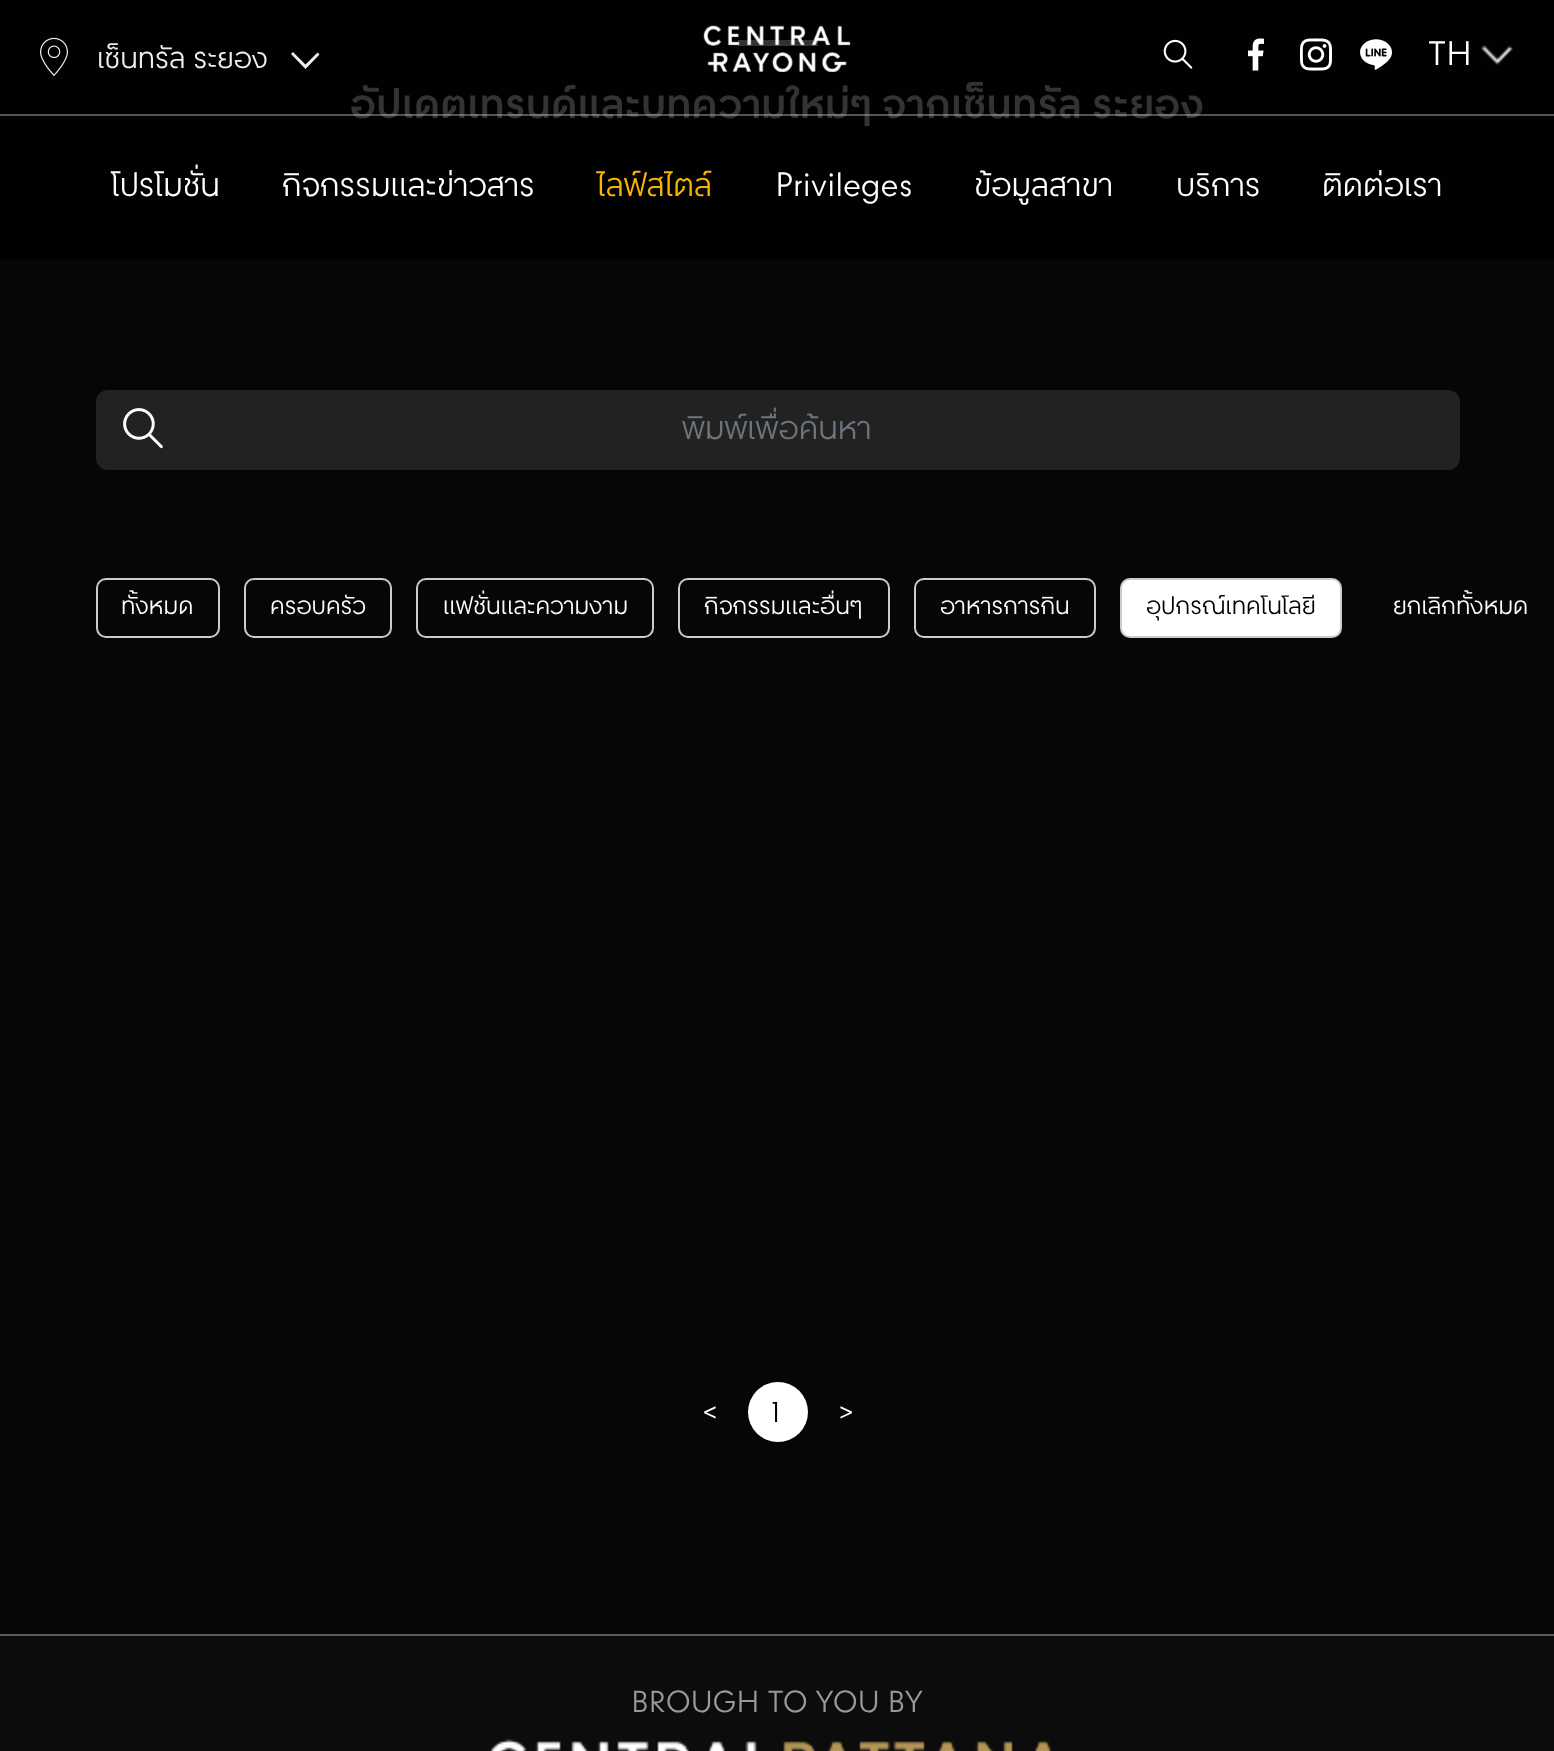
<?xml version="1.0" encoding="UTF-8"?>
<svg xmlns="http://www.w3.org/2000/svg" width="1554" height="1751">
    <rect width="100%" height="100%" fill="#060606"/>
    <rect x="0" y="0" width="1554" height="260" fill="#010101"/>
    <text x="350" y="118" font-family="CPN" font-size="40" font-weight="700" fill="#333333">อัปเดตเทรนด์และบทความใหม่ๆ จากเซ็นทรัล ระยอง</text>
    <rect x="0" y="114" width="1554" height="2" fill="#DEE2E6" fill-opacity="0.37"/>
    <image x="40" y="37" width="28" height="40" href="img_01.png"/>
    <text x="97" y="68" font-family="CPN" font-size="28.75" fill="#EEEEEE">เซ็นทรัล ระยอง</text>
    <path d="M 291 54 L 293 52 L 305.5 64.5 L 317.5 52.5 L 319.5 54.5 L 305.5 69 Z" fill="#EEEEEE"/>
    <rect x="738" y="40" width="80" height="6" fill="#333333"/>
    <image x="703" y="25" width="148" height="47" href="img_02.png"/>
    <image x="1163" y="39" width="30" height="30" href="img_03.png"/>
    <image x="1248" y="38" width="16" height="33" href="img_04.png"/>
    <image x="1300" y="38" width="32" height="33" href="img_05.png"/>
    <image x="1360" y="39" width="32" height="31" href="img_06.png"/>
    <image x="1481" y="45" width="32" height="20" href="img_07.png"/>
    <text x="1428" y="65" font-family="CPN" font-size="32" fill="#FFFFFF">TH</text>
    <text x="111" y="196" font-family="CPN" font-size="32" fill="#FFFFFF">โปรโมชั่น</text>
    <text x="282" y="196" font-family="CPN" font-size="32" fill="#FFFFFF">กิจกรรมและข่าวสาร</text>
    <text x="597" y="196" font-family="CPN" font-size="32" fill="#F8B600">ไลฟ์สไตล์</text>
    <text x="775" y="196" font-family="CPN" font-size="32" fill="#FFFFFF">Privileges</text>
    <text x="974" y="196" font-family="CPN" font-size="32" fill="#FFFFFF">ข้อมูลสาขา</text>
    <text x="1176" y="196" font-family="CPN" font-size="32" fill="#FFFFFF">บริการ</text>
    <text x="1322" y="196" font-family="CPN" font-size="32" fill="#FFFFFF">ติดต่อเรา</text>
    <rect x="96" y="390" width="1364" height="80" rx="12" fill="#222222"/>
    <image x="123" y="408" width="40" height="41" href="img_08.png"/>
    <text x="682" y="439" font-family="CPN" font-size="32" fill="#6C757D">พิมพ์เพื่อค้นหา</text>
    <rect x="97" y="579" width="122" height="58" rx="9" fill="none" stroke="#CCCCCC" stroke-width="2"/>
    <text x="121" y="614" font-family="CPN" font-size="24" fill="#FFFFFF">ทั้งหมด</text>
    <rect x="245" y="579" width="146" height="58" rx="9" fill="none" stroke="#CCCCCC" stroke-width="2"/>
    <text x="270" y="614" font-family="CPN" font-size="24" fill="#FFFFFF">ครอบครัว</text>
    <rect x="417" y="579" width="236" height="58" rx="9" fill="none" stroke="#CCCCCC" stroke-width="2"/>
    <text x="443" y="614" font-family="CPN" font-size="24" fill="#FFFFFF">แฟชั่นและความงาม</text>
    <rect x="679" y="579" width="210" height="58" rx="9" fill="none" stroke="#CCCCCC" stroke-width="2"/>
    <text x="704" y="614" font-family="CPN" font-size="24" fill="#FFFFFF">กิจกรรมและอื่นๆ</text>
    <rect x="915" y="579" width="180" height="58" rx="9" fill="none" stroke="#CCCCCC" stroke-width="2"/>
    <text x="940" y="614" font-family="CPN" font-size="24" fill="#FFFFFF">อาหารการกิน</text>
    <rect x="1121" y="579" width="220" height="58" rx="9" fill="#FFFFFF" stroke="#CCCCCC" stroke-width="2"/>
    <text x="1146" y="614" font-family="CPN" font-size="24" fill="#000000">อุปกรณ์เทคโนโลยี</text>
    <text x="1393" y="614" font-family="CPN" font-size="24" fill="#FFFFFF">ยกเลิกทั้งหมด</text>
    <text x="702" y="1422" font-family="CPN" font-size="28" fill="#FFFFFF">&lt;</text>
    <circle cx="778" cy="1412" r="30" fill="#FFFFFF"/>
    <text x="771" y="1422" font-family="CPN" font-size="28" fill="#000000">1</text>
    <text x="838" y="1422" font-family="CPN" font-size="28" fill="#FFFFFF">&gt;</text>
    <rect x="0" y="1636" width="1554" height="115" fill="#0C0C0C"/>
    <rect x="0" y="1634" width="1554" height="2" fill="#5A5B5D"/>
    <text x="631" y="1712" font-family="CPN" font-size="28.75" fill="#999999">BROUGH TO YOU BY</text>
    <image x="489" y="1739" width="563" height="12" href="img_09.png"/>
</svg>
